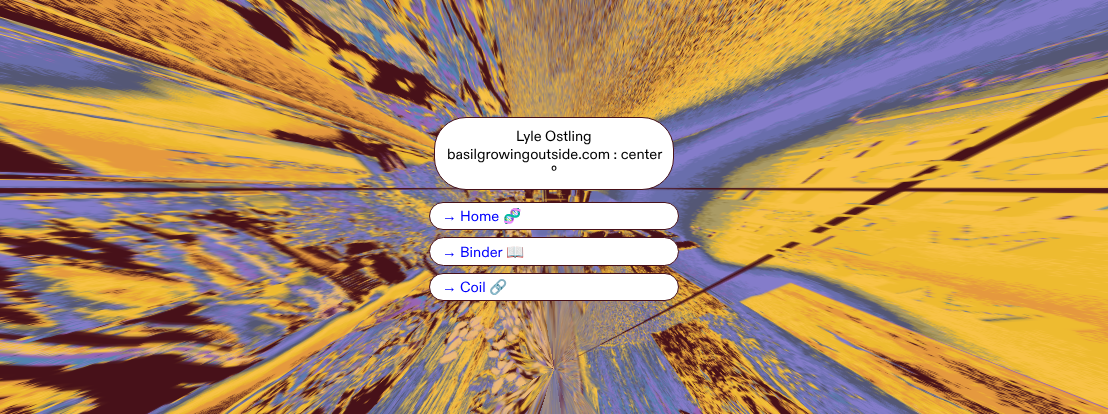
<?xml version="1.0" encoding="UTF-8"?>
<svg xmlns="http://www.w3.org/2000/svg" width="1108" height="414">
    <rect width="100%" height="100%" fill="#FFFFFF"/>
    <image x="0" y="0" width="1108" height="414" href="img_01.png"/>
    <rect x="434.5" y="117.5" width="239" height="72" rx="31.5" fill="#FFFFFF" stroke="#471119"/>
    <text x="516" y="141" font-family="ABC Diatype" font-size="14.7" fill="#000000">Lyle Ostling</text>
    <text x="447" y="159" font-family="ABC Diatype" font-size="14.7" fill="#000000">basilgrowingoutside.com : center</text>
    <text x="551" y="176" font-family="ABC Diatype" font-size="14.7" fill="#000000">º</text>
    <rect x="429.5" y="202.5" width="249" height="27" rx="13.5" fill="#FFFFFF" stroke="#471119"/>
    <text x="442" y="221" font-family="Liberation Sans" font-size="14.7" fill="#0000FF">→</text>
    <text x="460" y="221" font-family="ABC Diatype" font-size="14.7" fill="#0000FF">Home</text>
    <text x="503" y="221" font-family="Noto Color Emoji" font-size="14.7" fill="#0000FF">🧬</text>
    <rect x="429.5" y="237.5" width="249" height="28" rx="14" fill="#FFFFFF" stroke="#471119"/>
    <text x="442" y="257" font-family="Liberation Sans" font-size="14.7" fill="#0000FF">→</text>
    <text x="460" y="257" font-family="ABC Diatype" font-size="14.7" fill="#0000FF">Binder</text>
    <text x="506" y="257" font-family="Noto Color Emoji" font-size="14.7" fill="#0000FF">📖</text>
    <rect x="429.5" y="273.5" width="249" height="27" rx="13.5" fill="#FFFFFF" stroke="#471119"/>
    <text x="442" y="292" font-family="Liberation Sans" font-size="14.7" fill="#0000FF">→</text>
    <text x="460" y="292" font-family="ABC Diatype" font-size="14.7" fill="#0000FF">Coil</text>
    <text x="489" y="292" font-family="Noto Color Emoji" font-size="14.7" fill="#0000FF">🔗</text>
</svg>
